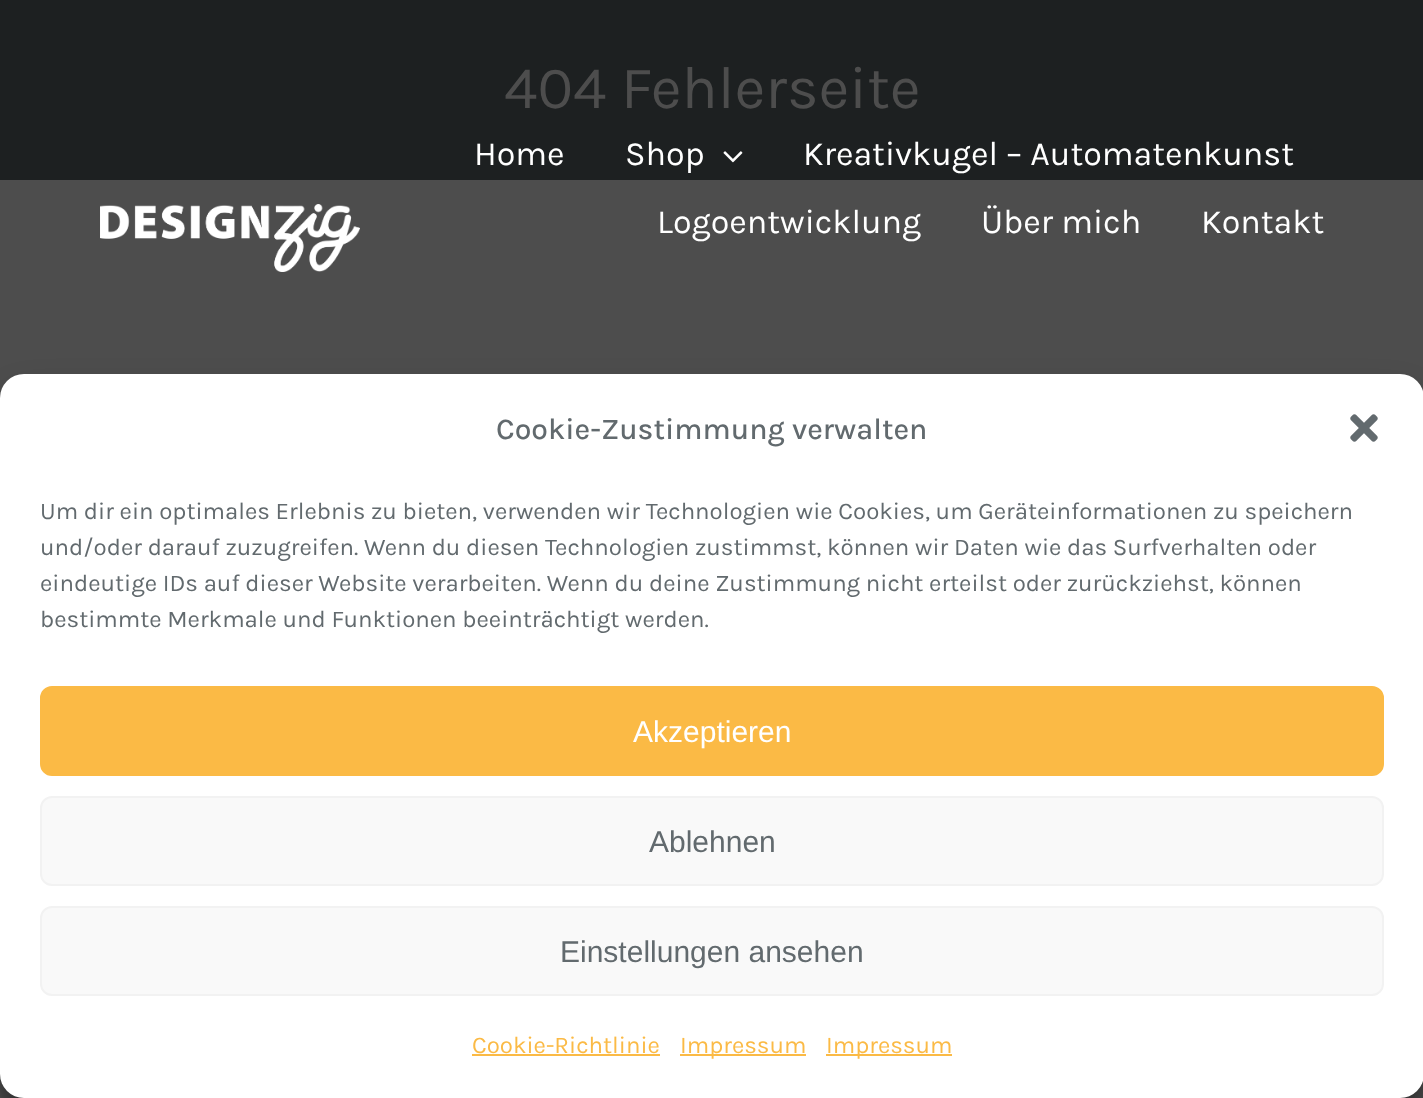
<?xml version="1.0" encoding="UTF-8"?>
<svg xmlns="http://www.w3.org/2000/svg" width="1423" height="1098">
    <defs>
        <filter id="blur1" x="-50%" y="-200%" width="200%" height="500%"><feGaussianBlur stdDeviation="6"/></filter>
        <filter id="blur2" x="-50%" y="-200%" width="200%" height="500%"><feGaussianBlur stdDeviation="20"/></filter>
    </defs>
    <rect width="100%" height="100%" fill="#4D4D4D"/>
    <rect x="0" y="0" width="1423" height="180" fill="#1D2021"/>
    <text x="504" y="108" font-family="Karla" font-size="60" fill="#4D4D4D">404 Fehlerseite</text>
    <image x="100" y="204" width="260" height="68" href="img_01.png"/>
    <text x="474" y="165" font-family="Karla" font-size="34" fill="#FFFFFF">Home</text>
    <text x="625" y="165" font-family="Karla" font-size="34" fill="#FFFFFF">Shop</text>
    <image x="723" y="151" width="20" height="12" href="img_02.png"/>
    <text x="803" y="165" font-family="Karla" font-size="34" fill="#FFFFFF">Kreativkugel – Automatenkunst</text>
    <text x="657" y="233" font-family="Karla" font-size="34" fill="#FFFFFF">Logoentwicklung</text>
    <text x="981" y="233" font-family="Karla" font-size="34" fill="#FFFFFF">Über mich</text>
    <text x="1201" y="233" font-family="Karla" font-size="34" fill="#FFFFFF">Kontakt</text>
    <rect x="0" y="386" width="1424" height="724" rx="24" fill="#000000" fill-opacity="0.23" filter="url(#blur1)"/>
    <rect x="0" y="394" width="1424" height="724" rx="24" fill="#000000" fill-opacity="0.19" filter="url(#blur2)"/>
    <rect x="0" y="374" width="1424" height="724" rx="24" fill="#FFFFFF"/>
    <text x="496" y="439" font-family="Karla" font-size="30" font-weight="500" fill="#626A6E">Cookie-Zustimmung verwalten</text>
    <image x="1350" y="414" width="28" height="28" href="img_03.png"/>
    <text font-family="Karla" font-size="24" fill="#626A6E">
        <tspan x="40" y="519">Um dir ein optimales Erlebnis zu bieten, verwenden wir Technologien wie Cookies, um Geräteinformationen zu speichern</tspan>
        <tspan x="40" y="555">und/oder darauf zuzugreifen. Wenn du diesen Technologien zustimmst, können wir Daten wie das Surfverhalten oder</tspan>
        <tspan x="40" y="591">eindeutige IDs auf dieser Website verarbeiten. Wenn du deine Zustimmung nicht erteilst oder zurückziehst, können</tspan>
        <tspan x="40" y="627">bestimmte Merkmale und Funktionen beeinträchtigt werden.</tspan>
    </text>
    <rect x="41" y="687" width="1342" height="88" rx="11" fill="#FBBA45" stroke="#FBBA45" stroke-width="2"/>
    <text x="633" y="742" font-family="Liberation Sans" font-size="30" fill="#FFFFFF">Akzeptieren</text>
    <rect x="41" y="797" width="1342" height="88" rx="11" fill="#F9F9F9" stroke="#F2F2F2" stroke-width="2"/>
    <text x="649" y="852" font-family="Liberation Sans" font-size="30" fill="#626A6E">Ablehnen</text>
    <rect x="41" y="907" width="1342" height="88" rx="11" fill="#F9F9F9" stroke="#F2F2F2" stroke-width="2"/>
    <text x="560" y="962" font-family="Liberation Sans" font-size="30" fill="#626A6E">Einstellungen ansehen</text>
    <text x="472" y="1053" font-family="Karla" font-size="24" fill="#FBBA45">Cookie-Richtlinie</text>
    <rect x="472" y="1054" width="188" height="2" fill="#FBBA45"/>
    <rect x="680" y="1054" width="126" height="2" fill="#FBBA45"/>
    <text x="680" y="1053" font-family="Karla" font-size="24" fill="#FBBA45">Impressum</text>
    <rect x="826" y="1054" width="126" height="2" fill="#FBBA45"/>
    <text x="826" y="1053" font-family="Karla" font-size="24" fill="#FBBA45">Impressum</text>
</svg>
